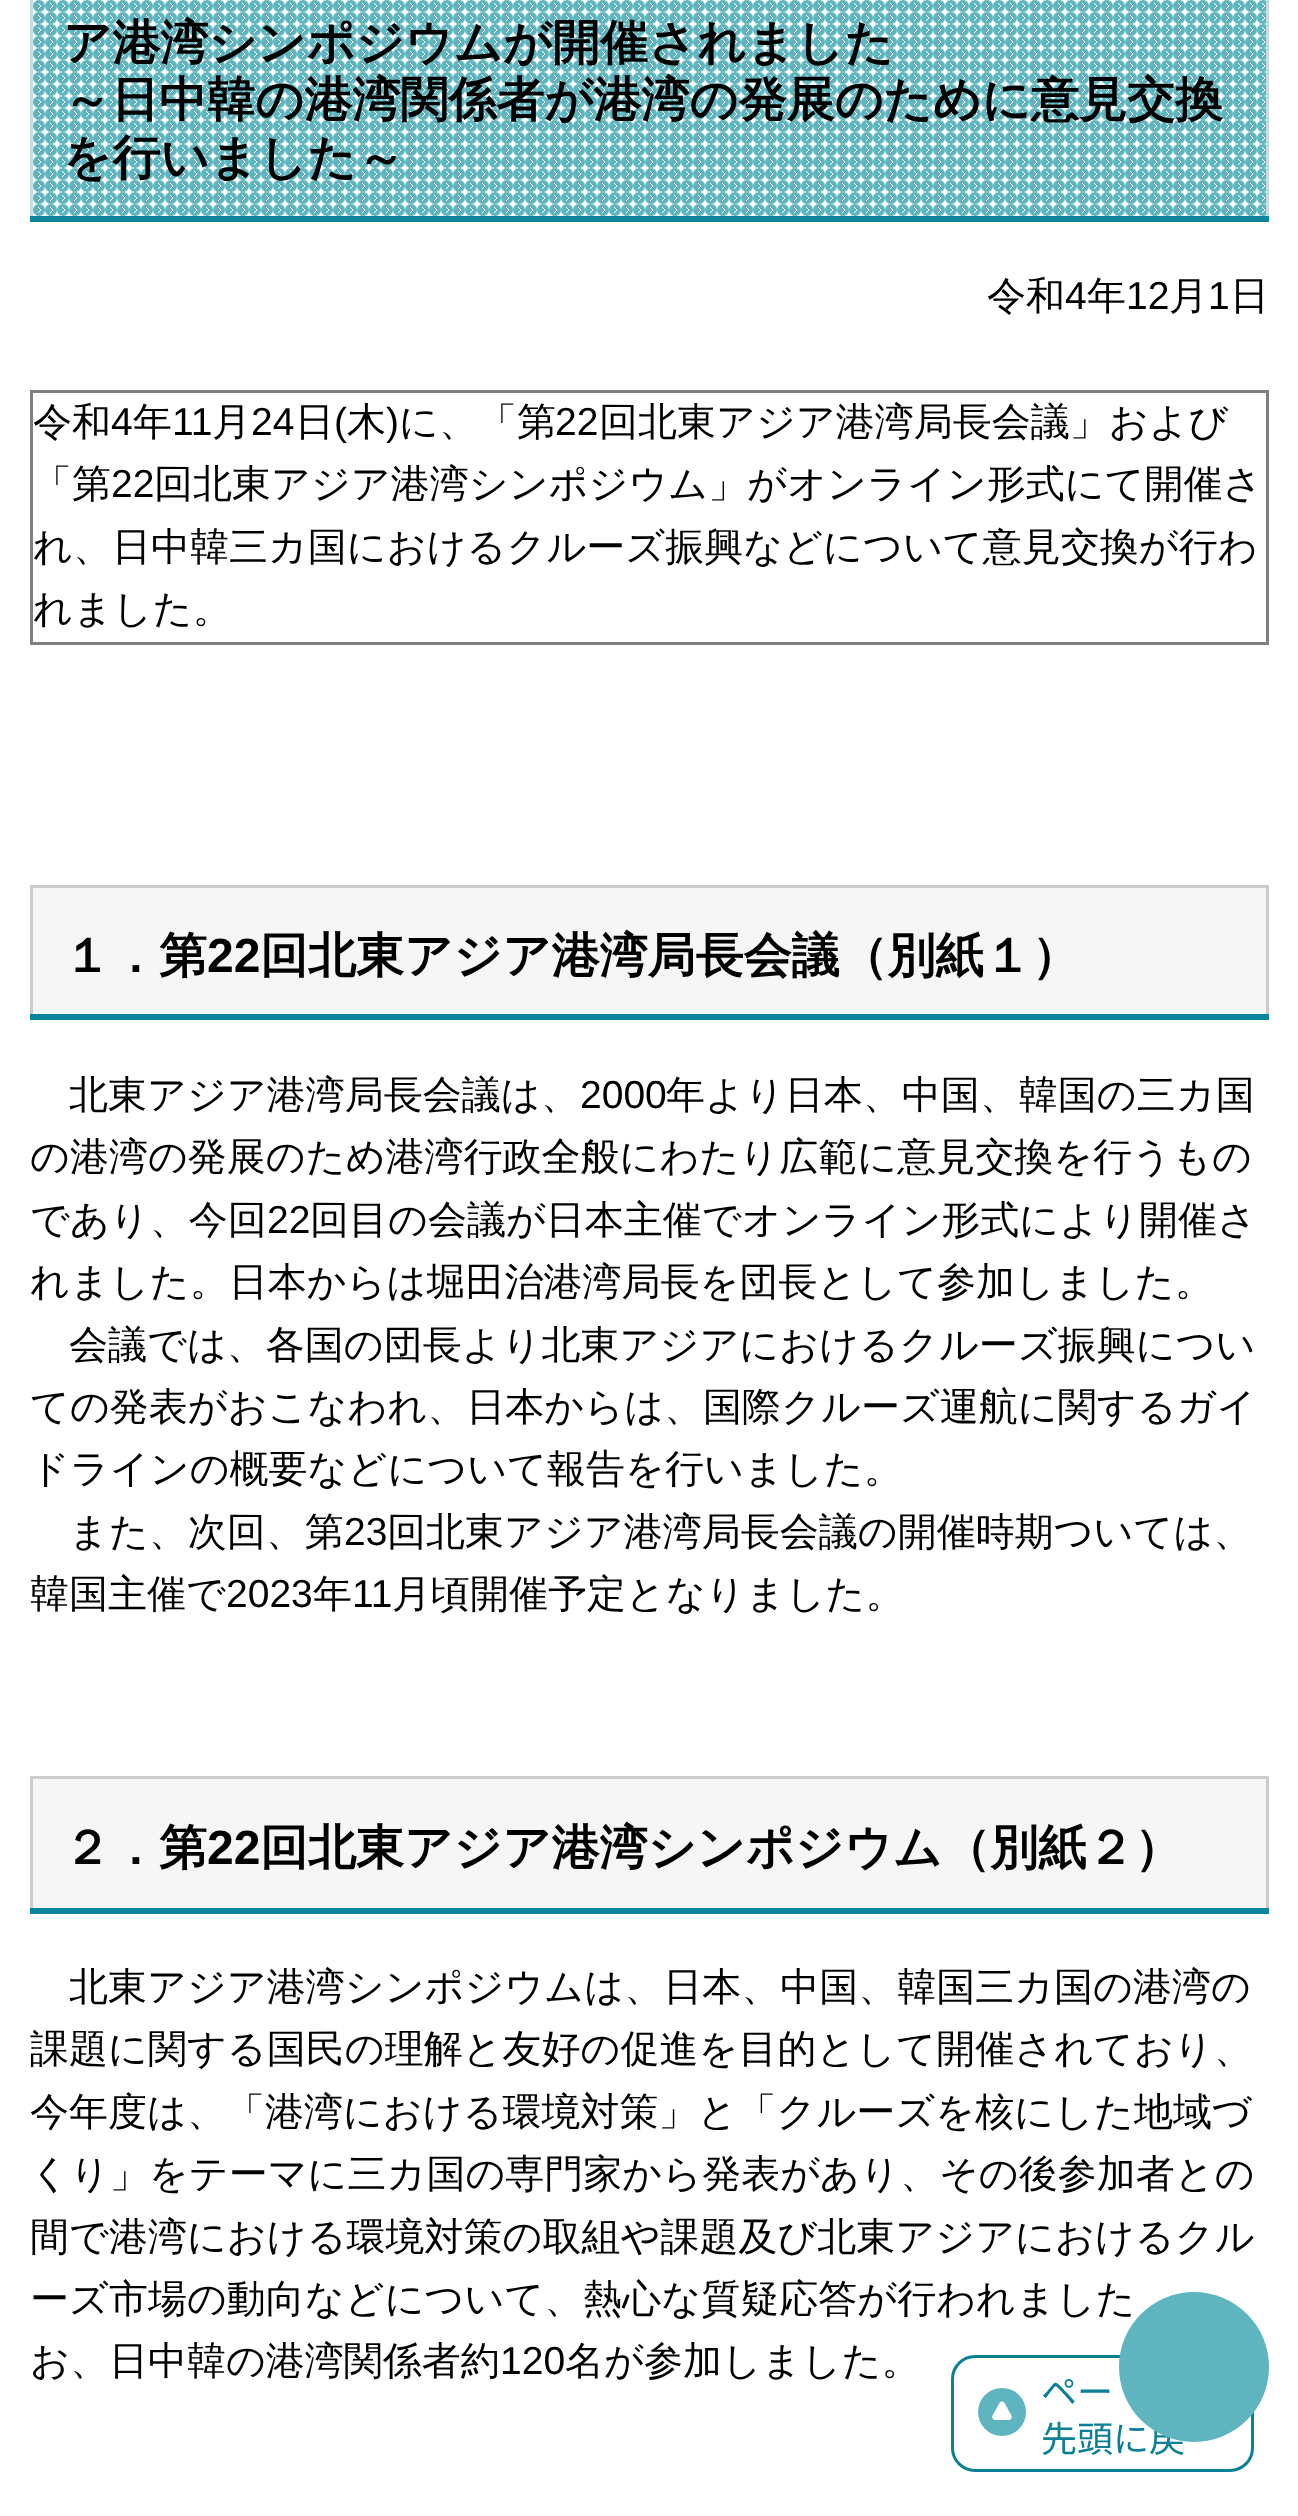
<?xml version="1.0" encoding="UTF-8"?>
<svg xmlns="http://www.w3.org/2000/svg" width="1298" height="2516">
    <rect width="100%" height="100%" fill="#FFFFFF"/>
    <rect x="30" y="216" width="1239" height="6" fill="#0D849D"/>
    <image x="33" y="0" width="1233" height="216" href="img_01.png"/>
    <rect x="1266" y="0" width="3" height="216" fill="#C6DCE0"/>
    <rect x="30" y="0" width="3" height="216" fill="#C6DCE0"/>
    <text font-family="WenQuanYi Zen Hei" font-size="48" font-weight="700" fill="#000000">
        <tspan x="63" y="59">ア港湾シンポジウムが開催されました</tspan>
        <tspan x="63" y="116">～日中韓の港湾関係者が港湾の発展のために意見交換</tspan>
        <tspan x="63" y="174">を行いました～</tspan>
    </text>
    <text x="987" y="309" font-family="WenQuanYi Zen Hei" font-size="39" font-weight="500" fill="#000000">令和</text>
    <text x="1065" y="309" font-family="Liberation Sans" font-size="39" fill="#000000">4</text>
    <text x="1087" y="309" font-family="WenQuanYi Zen Hei" font-size="39" font-weight="500" fill="#000000">年</text>
    <text x="1126" y="309" font-family="Liberation Sans" font-size="39" fill="#000000">12</text>
    <text x="1169" y="309" font-family="WenQuanYi Zen Hei" font-size="39" font-weight="500" fill="#000000">月</text>
    <text x="1208" y="309" font-family="Liberation Sans" font-size="39" fill="#000000">1</text>
    <text x="1230" y="309" font-family="WenQuanYi Zen Hei" font-size="39" font-weight="500" fill="#000000">日</text>
    <rect x="30" y="390" width="1239" height="3" fill="#808080"/>
    <rect x="1266" y="390" width="3" height="255" fill="#808080"/>
    <rect x="30" y="642" width="1239" height="3" fill="#808080"/>
    <rect x="30" y="390" width="3" height="255" fill="#808080"/>
    <text x="33" y="435" font-family="WenQuanYi Zen Hei" font-size="39" font-weight="500" fill="#000000">令和</text>
    <text x="111" y="435" font-family="Liberation Sans" font-size="39" fill="#000000">4</text>
    <text x="133" y="435" font-family="WenQuanYi Zen Hei" font-size="39" font-weight="500" fill="#000000">年</text>
    <text x="172" y="435" font-family="Liberation Sans" font-size="39" fill="#000000">11</text>
    <text x="212" y="435" font-family="WenQuanYi Zen Hei" font-size="39" font-weight="500" fill="#000000">月</text>
    <text x="251" y="435" font-family="Liberation Sans" font-size="39" fill="#000000">24</text>
    <text x="295" y="435" font-family="WenQuanYi Zen Hei" font-size="39" font-weight="500" fill="#000000">日</text>
    <text x="334" y="435" font-family="Liberation Sans" font-size="39" fill="#000000">(</text>
    <text x="347" y="435" font-family="WenQuanYi Zen Hei" font-size="39" font-weight="500" fill="#000000">木</text>
    <text x="386" y="435" font-family="Liberation Sans" font-size="39" fill="#000000">)</text>
    <text x="399" y="435" font-family="WenQuanYi Zen Hei" font-size="39" font-weight="500" fill="#000000">に、「第</text>
    <text x="555" y="435" font-family="Liberation Sans" font-size="39" fill="#000000">22</text>
    <text x="599" y="435" font-family="WenQuanYi Zen Hei" font-size="39" font-weight="500" fill="#000000">回北東アジア港湾局長会議」および</text>
    <text x="33" y="497" font-family="WenQuanYi Zen Hei" font-size="39" font-weight="500" fill="#000000">「第</text>
    <text x="111" y="497" font-family="Liberation Sans" font-size="39" fill="#000000">22</text>
    <text x="154" y="497" font-family="WenQuanYi Zen Hei" font-size="39" font-weight="500" fill="#000000">回北東アジア港湾シンポジウム」がオンライン形式にて開催さ</text>
    <text font-family="WenQuanYi Zen Hei" font-size="39" font-weight="500" fill="#000000">
        <tspan x="33" y="560">れ、日中韓三カ国におけるクルーズ振興などについて意見交換が行わ</tspan>
        <tspan x="33" y="622">れました。</tspan>
    </text>
    <rect x="30" y="1014" width="1239" height="6" fill="#0D849D"/>
    <rect x="33" y="888" width="1233" height="126" fill="#F6F6F6"/>
    <rect x="30" y="885" width="1239" height="3" fill="#CCCCCC"/>
    <rect x="1266" y="885" width="3" height="129" fill="#CCCCCC"/>
    <rect x="30" y="885" width="3" height="129" fill="#CCCCCC"/>
    <text x="63" y="972" font-family="WenQuanYi Zen Hei" font-size="48" font-weight="700" fill="#000000">１．第</text>
    <text x="207" y="972" font-family="Liberation Sans" font-size="48" font-weight="700" fill="#000000">22</text>
    <text x="260" y="972" font-family="WenQuanYi Zen Hei" font-size="48" font-weight="700" fill="#000000">回北東アジア港湾局長会議（別紙１）</text>
    <text x="69" y="1108" font-family="WenQuanYi Zen Hei" font-size="39" font-weight="500" fill="#000000">北東アジア港湾局長会議は、</text>
    <text x="580" y="1108" font-family="Liberation Sans" font-size="39" fill="#000000">2000</text>
    <text x="666" y="1108" font-family="WenQuanYi Zen Hei" font-size="39" font-weight="500" fill="#000000">年より日本、中国、韓国の三カ国</text>
    <text font-family="WenQuanYi Zen Hei" font-size="39" font-weight="500" fill="#000000">
        <tspan x="30" y="1170">の港湾の発展のため港湾行政全般にわたり広範に意見交換を行うもの</tspan>
        <tspan x="30" y="1233">であり、今回</tspan>
    </text>
    <text x="267" y="1233" font-family="Liberation Sans" font-size="39" fill="#000000">22</text>
    <text x="310" y="1233" font-family="WenQuanYi Zen Hei" font-size="39" font-weight="500" fill="#000000">回目の会議が日本主催でオンライン形式により開催さ</text>
    <text x="30" y="1295" font-family="WenQuanYi Zen Hei" font-size="39" font-weight="500" fill="#000000">れました。日本からは堀田治港湾局長を団長として参加しました。</text>
    <text x="69" y="1358" font-family="WenQuanYi Zen Hei" font-size="39" font-weight="500" fill="#000000">会議では、各国の団長より北東アジアにおけるクルーズ振興につい</text>
    <text font-family="WenQuanYi Zen Hei" font-size="39" font-weight="500" fill="#000000">
        <tspan x="30" y="1420">ての発表がおこなわれ、日本からは、国際クルーズ運航に関するガイ</tspan>
        <tspan x="30" y="1482">ドラインの概要などについて報告を行いました。</tspan>
    </text>
    <text x="69" y="1545" font-family="WenQuanYi Zen Hei" font-size="39" font-weight="500" fill="#000000">また、次回、第</text>
    <text x="344" y="1545" font-family="Liberation Sans" font-size="39" fill="#000000">23</text>
    <text x="387" y="1545" font-family="WenQuanYi Zen Hei" font-size="39" font-weight="500" fill="#000000">回北東アジア港湾局長会議の開催時期ついては、</text>
    <text x="30" y="1607" font-family="WenQuanYi Zen Hei" font-size="39" font-weight="500" fill="#000000">韓国主催で</text>
    <text x="226" y="1607" font-family="Liberation Sans" font-size="39" fill="#000000">2023</text>
    <text x="313" y="1607" font-family="WenQuanYi Zen Hei" font-size="39" font-weight="500" fill="#000000">年</text>
    <text x="352" y="1607" font-family="Liberation Sans" font-size="39" fill="#000000">11</text>
    <text x="392" y="1607" font-family="WenQuanYi Zen Hei" font-size="39" font-weight="500" fill="#000000">月頃開催予定となりました。</text>
    <rect x="30" y="1908" width="1239" height="6" fill="#0D849D"/>
    <rect x="33" y="1779" width="1233" height="129" fill="#F6F6F6"/>
    <rect x="30" y="1776" width="1239" height="3" fill="#CCCCCC"/>
    <rect x="1266" y="1776" width="3" height="132" fill="#CCCCCC"/>
    <rect x="30" y="1776" width="3" height="132" fill="#CCCCCC"/>
    <text x="63" y="1864" font-family="WenQuanYi Zen Hei" font-size="48" font-weight="700" fill="#000000">２．第</text>
    <text x="207" y="1864" font-family="Liberation Sans" font-size="48" font-weight="700" fill="#000000">22</text>
    <text x="260" y="1864" font-family="WenQuanYi Zen Hei" font-size="48" font-weight="700" fill="#000000">回北東アジア港湾シンポジウム（別紙２）</text>
    <text x="69" y="2000" font-family="WenQuanYi Zen Hei" font-size="39" font-weight="500" fill="#000000">北東アジア港湾シンポジウムは、日本、中国、韓国三カ国の港湾の</text>
    <text font-family="WenQuanYi Zen Hei" font-size="39" font-weight="500" fill="#000000">
        <tspan x="30" y="2062">課題に関する国民の理解と友好の促進を目的として開催されており、</tspan>
        <tspan x="30" y="2125">今年度は、「港湾における環境対策」と「クルーズを核にした地域づ</tspan>
        <tspan x="30" y="2187">くり」をテーマに三カ国の専門家から発表があり、その後参加者との</tspan>
        <tspan x="30" y="2250">間で港湾における環境対策の取組や課題及び北東アジアにおけるクル</tspan>
        <tspan x="30" y="2312">ーズ市場の動向などについて、熱心な質疑応答が行われました</tspan>
        <tspan x="30" y="2374">お、日中韓の港湾関係者約</tspan>
    </text>
    <text x="500" y="2374" font-family="Liberation Sans" font-size="39" fill="#000000">120</text>
    <text x="565" y="2374" font-family="WenQuanYi Zen Hei" font-size="39" font-weight="500" fill="#000000">名が参加しました。</text>
    <circle cx="1002" cy="2412" r="24" fill="#5EB5C0"/>
    <path d="M 999.5 2403 C 1000.5 2401 1003.5 2401 1004.5 2403 L 1011.5 2415.5 C 1012.5 2417.5 1011 2420 1009 2420 H 995 C 993 2420 991.5 2417.5 992.5 2415.5 Z" fill="#FFFFFF"/>
    <rect x="952.5" y="2356.5" width="300" height="114" rx="22.5" fill="none" stroke="#0B7F96" stroke-width="3"/>
    <text x="1041" y="2452" font-family="Noto Sans JP" font-size="36" fill="#0B7F96">先頭に戻</text>
    <circle cx="1194" cy="2367" r="75" fill="#5EB5C0"/>
    <text x="1041" y="2405" font-family="Noto Sans JP" font-size="36" fill="#0B7F96">ペー</text>
</svg>
